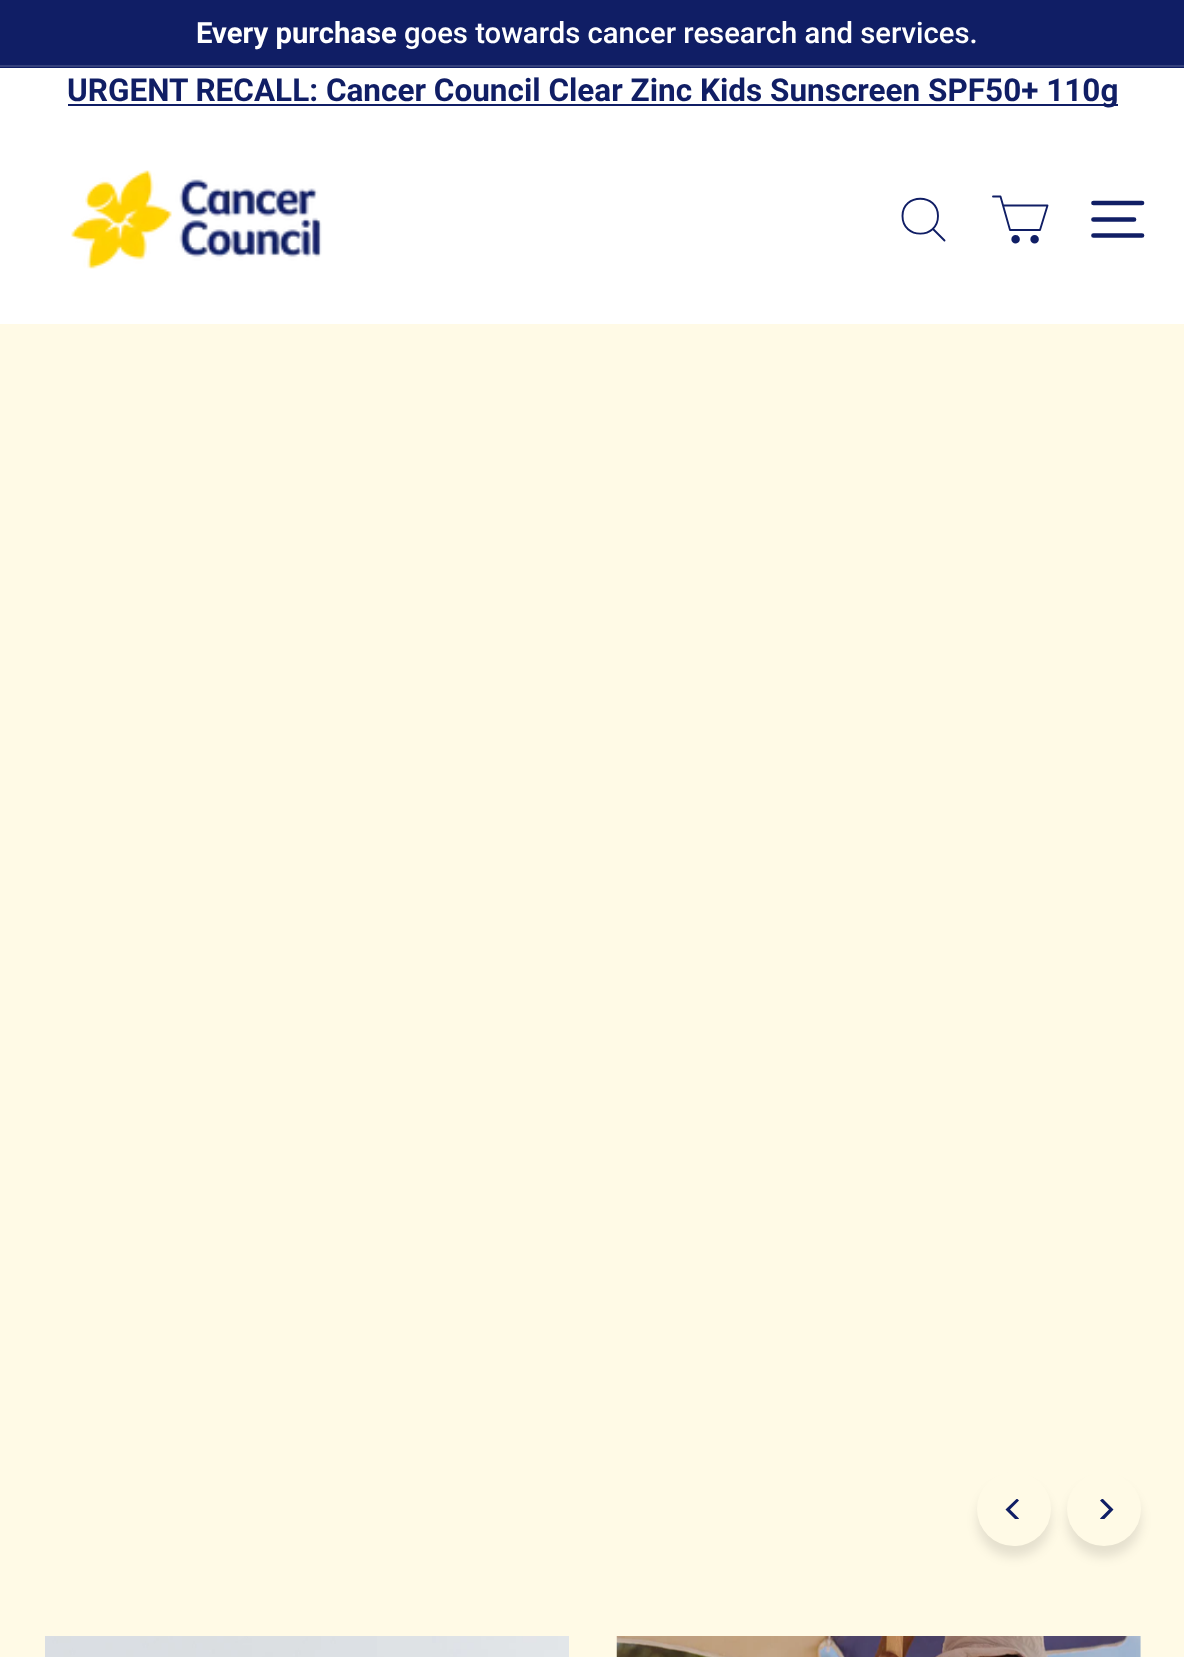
<?xml version="1.0" encoding="UTF-8"?>
<svg xmlns="http://www.w3.org/2000/svg" width="1184" height="1657">
    <defs>
        <filter id="blur1" x="-50%" y="-200%" width="200%" height="500%"><feGaussianBlur stdDeviation="5.5"/></filter>
        <clipPath id="clip1"><rect x="1004" y="1499" width="20" height="20"/></clipPath>
        <clipPath id="clip2"><rect x="1094" y="1499" width="20" height="20"/></clipPath>
    </defs>
    <rect width="100%" height="100%" fill="#FFFAE6"/>
    <rect x="0" y="0" width="1184" height="68" fill="#101E65"/>
    <text x="196" y="43" font-family="Roboto" font-size="29.25" font-weight="700" fill="#FFFFFF">Every purchase</text>
    <text x="404" y="43" font-family="Roboto" font-size="29.25" font-weight="500" fill="#FFFFFF">goes towards cancer research and services.</text>
    <rect x="0" y="65" width="1184" height="2" fill="#34407C"/>
    <rect x="0" y="68" width="1184" height="256" fill="#FFFFFF"/>
    <rect x="68" y="104" width="1050" height="2" fill="#101E65"/>
    <text x="67" y="101" font-family="Roboto" font-size="31.5" font-weight="700" fill="#101E65">URGENT RECALL: Cancer Council Clear Zinc Kids Sunscreen SPF50+ 110g</text>
    <image x="71" y="170" width="251" height="99" href="img_01.png"/>
    <path d="M 938 216 C 938 239.5 902.5 239.5 902.5 216 C 902.5 193 938 193 938 216 Z M 944.5 240.5 L 933 229" fill="none" stroke="#101E65" stroke-width="1.9" stroke-linecap="round" stroke-linejoin="round"/>
    <path d="M 1003.5 205.5 H 1047.5 L 1040 230 H 1010 L 1000.5 196.5 H 993" fill="none" stroke="#101E65" stroke-width="1.9" stroke-linecap="round" stroke-linejoin="round"/>
    <circle cx="1015.6" cy="239.3" r="1.9" fill="#101E65" stroke="#101E65" stroke-width="4.7"/>
    <circle cx="1034.6" cy="239.3" r="1.9" fill="#101E65" stroke="#101E65" stroke-width="4.7"/>
    <path d="M 1093.5 203 H 1142 M 1093.5 219.5 H 1134 M 1093.5 235.5 H 1142" fill="none" stroke="#101E65" stroke-width="4.7" stroke-linecap="round" stroke-linejoin="round"/>
    <rect x="977" y="1483" width="74" height="74" rx="37" fill="#000000" fill-opacity="0.1" filter="url(#blur1)"/>
    <circle cx="1014" cy="1509" r="37" fill="#FFFAE6"/>
    <g clip-path="url(#clip1)">
        <path d="M 1005.5 1509.5 L 1017 1521 L 1019 1518.5 L 1010 1509.5 L 1019 1500.5 L 1017 1498.5 Z" fill="#101E65"/>
    </g>
    <rect x="1067" y="1483" width="74" height="74" rx="37" fill="#000000" fill-opacity="0.1" filter="url(#blur1)"/>
    <circle cx="1104" cy="1509" r="37" fill="#FFFAE6"/>
    <g clip-path="url(#clip2)">
        <path d="M 1113.5 1509.5 L 1102.5 1498.5 L 1100 1500.5 L 1109 1509.5 L 1100 1518.5 L 1102.5 1521 Z" fill="#101E65"/>
    </g>
    <image x="45" y="1636" width="524" height="21" href="img_02.png"/>
    <image x="616" y="1636" width="525" height="21" href="img_03.png"/>
</svg>
